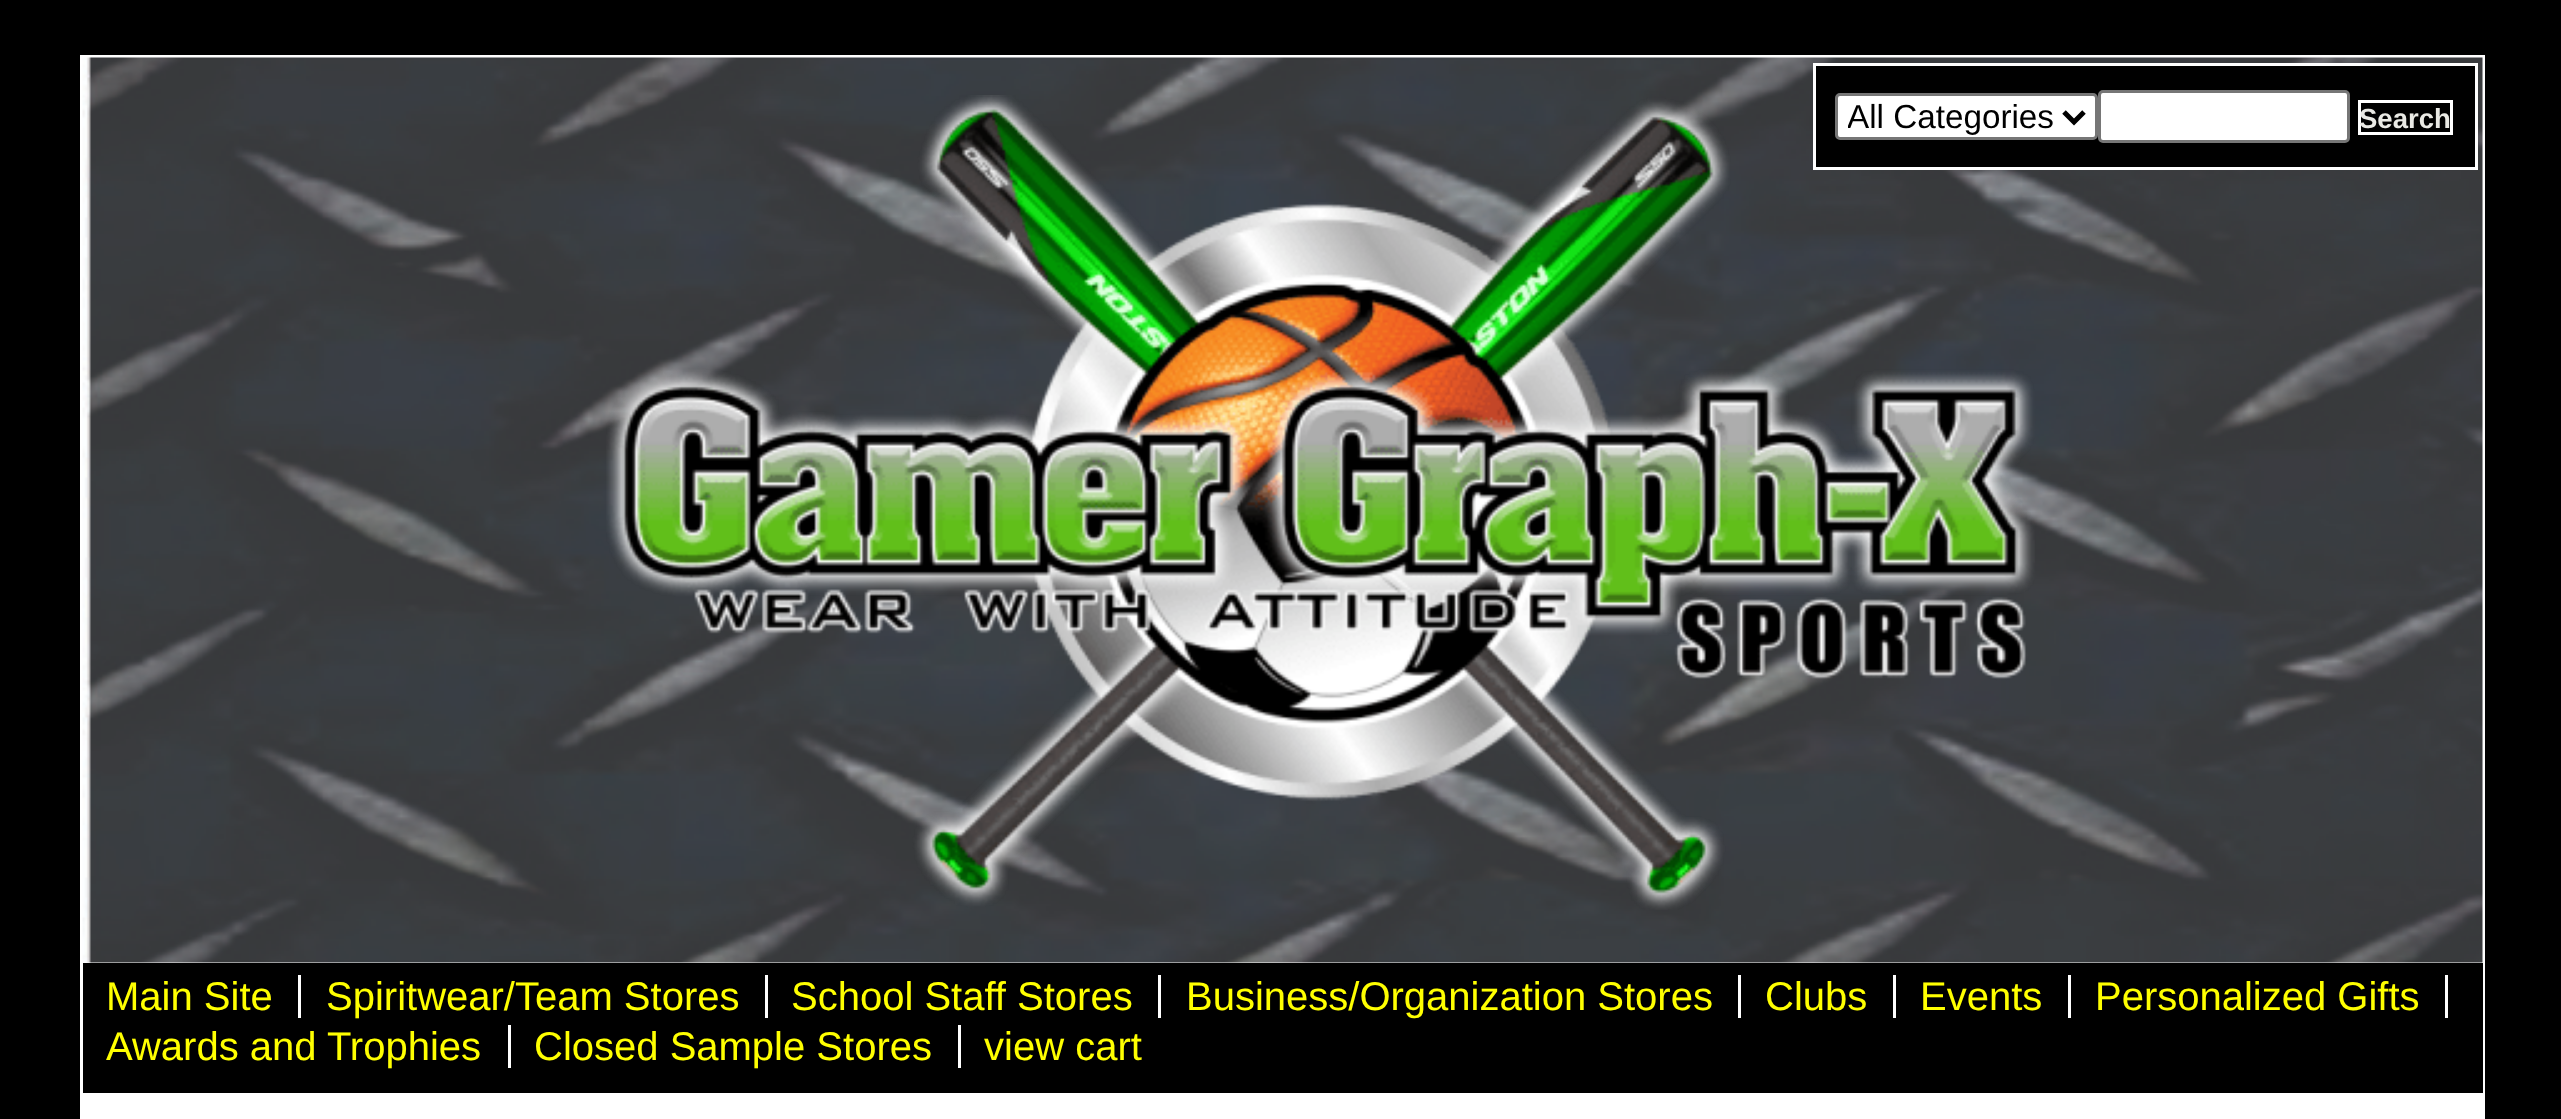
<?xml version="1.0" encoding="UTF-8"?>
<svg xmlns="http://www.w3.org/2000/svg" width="2561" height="1119">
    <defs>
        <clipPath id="clip1"><rect x="1848" y="95" width="207" height="43"/></clipPath>
    </defs>
    <rect width="100%" height="100%" fill="#000000"/>
    <rect x="80" y="55" width="2405" height="1064" fill="#FFFFFF"/>
    <image x="82" y="57" width="2401" height="906" href="img_01.png"/>
    <image x="606" y="95" width="1429" height="815" href="img_02.png"/>
    <rect x="1814.5" y="64.5" width="662" height="104" fill="#000000" stroke="#FFFFFF" stroke-width="3"/>
    <rect x="1836.5" y="94.5" width="260" height="44" rx="3.5" fill="#FFFFFF" stroke="#767676" stroke-width="3"/>
    <path d="M 2064 112 L 2074 122 L 2084 112" fill="none" stroke="#000000" stroke-width="5"/>
    <g clip-path="url(#clip1)">
        <text x="1847" y="128" font-family="Liberation Sans" font-size="33.25" fill="#000000">All Categories</text>
    </g>
    <rect x="2099.5" y="91.5" width="249" height="50" rx="3.5" fill="#FFFFFF" stroke="#767676" stroke-width="3"/>
    <rect x="2359.5" y="101.5" width="92" height="32" fill="none" stroke="#FFFFFF" stroke-width="3"/>
    <text x="2359" y="128" font-family="Liberation Sans" font-size="27.5" font-weight="700" fill="#E9E9E4">Search</text>
    <rect x="83" y="963" width="2400" height="130" fill="#000000"/>
    <text x="106" y="1010" font-family="Liberation Sans" font-size="40" fill="#FFFF00">Main Site</text>
    <rect x="298" y="975" width="3" height="43" fill="#FFFFFF"/>
    <text x="326" y="1010" font-family="Liberation Sans" font-size="40" fill="#FFFF00">Spiritwear/Team Stores</text>
    <rect x="765" y="975" width="3" height="43" fill="#FFFFFF"/>
    <text x="791" y="1010" font-family="Liberation Sans" font-size="40" fill="#FFFF00">School Staff Stores</text>
    <rect x="1158" y="975" width="3" height="43" fill="#FFFFFF"/>
    <text x="1186" y="1010" font-family="Liberation Sans" font-size="40" fill="#FFFF00">Business/Organization Stores</text>
    <rect x="1738" y="975" width="3" height="43" fill="#FFFFFF"/>
    <text x="1765" y="1010" font-family="Liberation Sans" font-size="40" fill="#FFFF00">Clubs</text>
    <rect x="1893" y="975" width="3" height="43" fill="#FFFFFF"/>
    <text x="1920" y="1010" font-family="Liberation Sans" font-size="40" fill="#FFFF00">Events</text>
    <rect x="2068" y="975" width="3" height="43" fill="#FFFFFF"/>
    <text x="2095" y="1010" font-family="Liberation Sans" font-size="40" fill="#FFFF00">Personalized Gifts</text>
    <rect x="2445" y="975" width="3" height="43" fill="#FFFFFF"/>
    <text x="106" y="1060" font-family="Liberation Sans" font-size="40" fill="#FFFF00">Awards and Trophies</text>
    <rect x="508" y="1025" width="3" height="43" fill="#FFFFFF"/>
    <text x="534" y="1060" font-family="Liberation Sans" font-size="40" fill="#FFFF00">Closed Sample Stores</text>
    <rect x="958" y="1025" width="3" height="43" fill="#FFFFFF"/>
    <text x="984" y="1060" font-family="Liberation Sans" font-size="40" fill="#FFFF00">view cart</text>
</svg>
